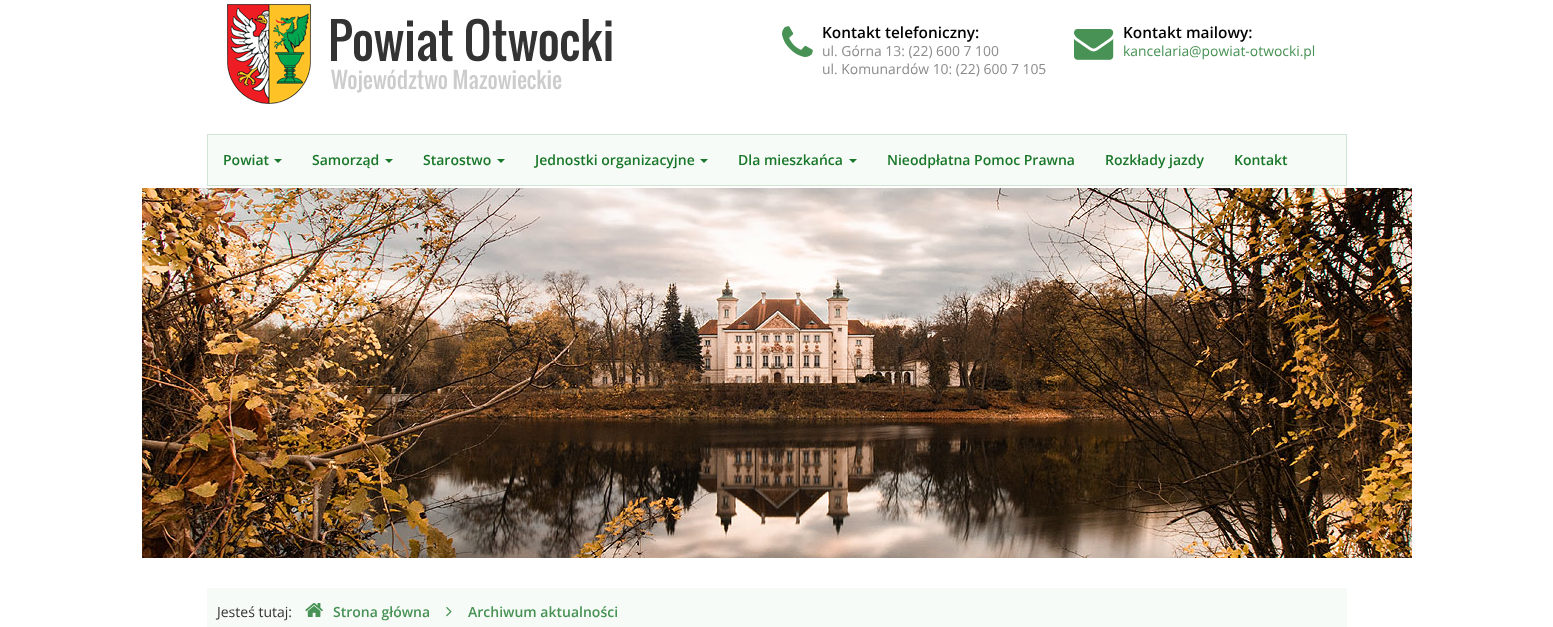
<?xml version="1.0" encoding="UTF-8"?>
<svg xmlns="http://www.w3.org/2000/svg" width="1553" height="627">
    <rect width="100%" height="100%" fill="#FFFFFF"/>
    <image x="227" y="4" width="385" height="100" href="img_01.png"/>
    <image x="782" y="26" width="31" height="31" href="img_02.png"/>
    <text x="822" y="38" font-family="Open Sans" font-size="15.4" font-weight="600" fill="#000000">Kontakt telefoniczny:</text>
    <text font-family="Open Sans" font-size="13.9" fill="#8C8C8C">
        <tspan x="822" y="56">ul. Górna 13: (22) 600 7 100</tspan>
        <tspan x="822" y="74">ul. Komunardów 10: (22) 600 7 105</tspan>
    </text>
    <image x="1074" y="29" width="40" height="31" href="img_03.png"/>
    <text x="1123" y="38" font-family="Open Sans" font-size="15.4" font-weight="600" fill="#000000">Kontakt mailowy:</text>
    <text x="1123" y="56" font-family="Open Sans" font-size="13.9" fill="#479254">kancelaria@powiat-otwocki.pl</text>
    <rect x="207.5" y="134.5" width="1139" height="51" fill="#F7FBF7" stroke="#D1E4D4"/>
    <text x="223" y="165" font-family="Open Sans" font-size="14" font-weight="600" fill="#197729">Powiat</text>
    <path d="M 274 159 H 282 L 278 163 Z" fill="#197729"/>
    <text x="312" y="165" font-family="Open Sans" font-size="14" font-weight="600" fill="#197729">Samorząd</text>
    <path d="M 385 159 H 393 L 389 163 Z" fill="#197729"/>
    <text x="423" y="165" font-family="Open Sans" font-size="14" font-weight="600" fill="#197729">Starostwo</text>
    <path d="M 497 159 H 505 L 501 163 Z" fill="#197729"/>
    <text x="535" y="165" font-family="Open Sans" font-size="14" font-weight="600" fill="#197729">Jednostki organizacyjne</text>
    <path d="M 700 159 H 708 L 704 163 Z" fill="#197729"/>
    <text x="738" y="165" font-family="Open Sans" font-size="14" font-weight="600" fill="#197729">Dla mieszkańca</text>
    <path d="M 849 159 H 857 L 853 163 Z" fill="#197729"/>
    <text x="887" y="165" font-family="Open Sans" font-size="14" font-weight="600" fill="#197729">Nieodpłatna Pomoc Prawna</text>
    <text x="1105" y="165" font-family="Open Sans" font-size="14" font-weight="600" fill="#197729">Rozkłady jazdy</text>
    <text x="1234" y="165" font-family="Open Sans" font-size="14" font-weight="600" fill="#197729">Kontakt</text>
    <image x="142" y="188" width="1270" height="370" href="img_04.png"/>
    <rect x="207" y="588" width="1140" height="39" fill="#F7FBF7"/>
    <text x="217" y="617" font-family="Open Sans" font-size="14" fill="#333333">Jesteś tutaj:</text>
    <image x="305" y="603" width="18" height="14" href="img_05.png"/>
    <text x="333" y="617" font-family="Open Sans" font-size="14" font-weight="600" fill="#479254">Strona główna</text>
    <image x="446" y="607" width="6" height="10" href="img_06.png"/>
    <text x="468" y="617" font-family="Open Sans" font-size="14" font-weight="600" fill="#479254">Archiwum aktualności</text>
</svg>
